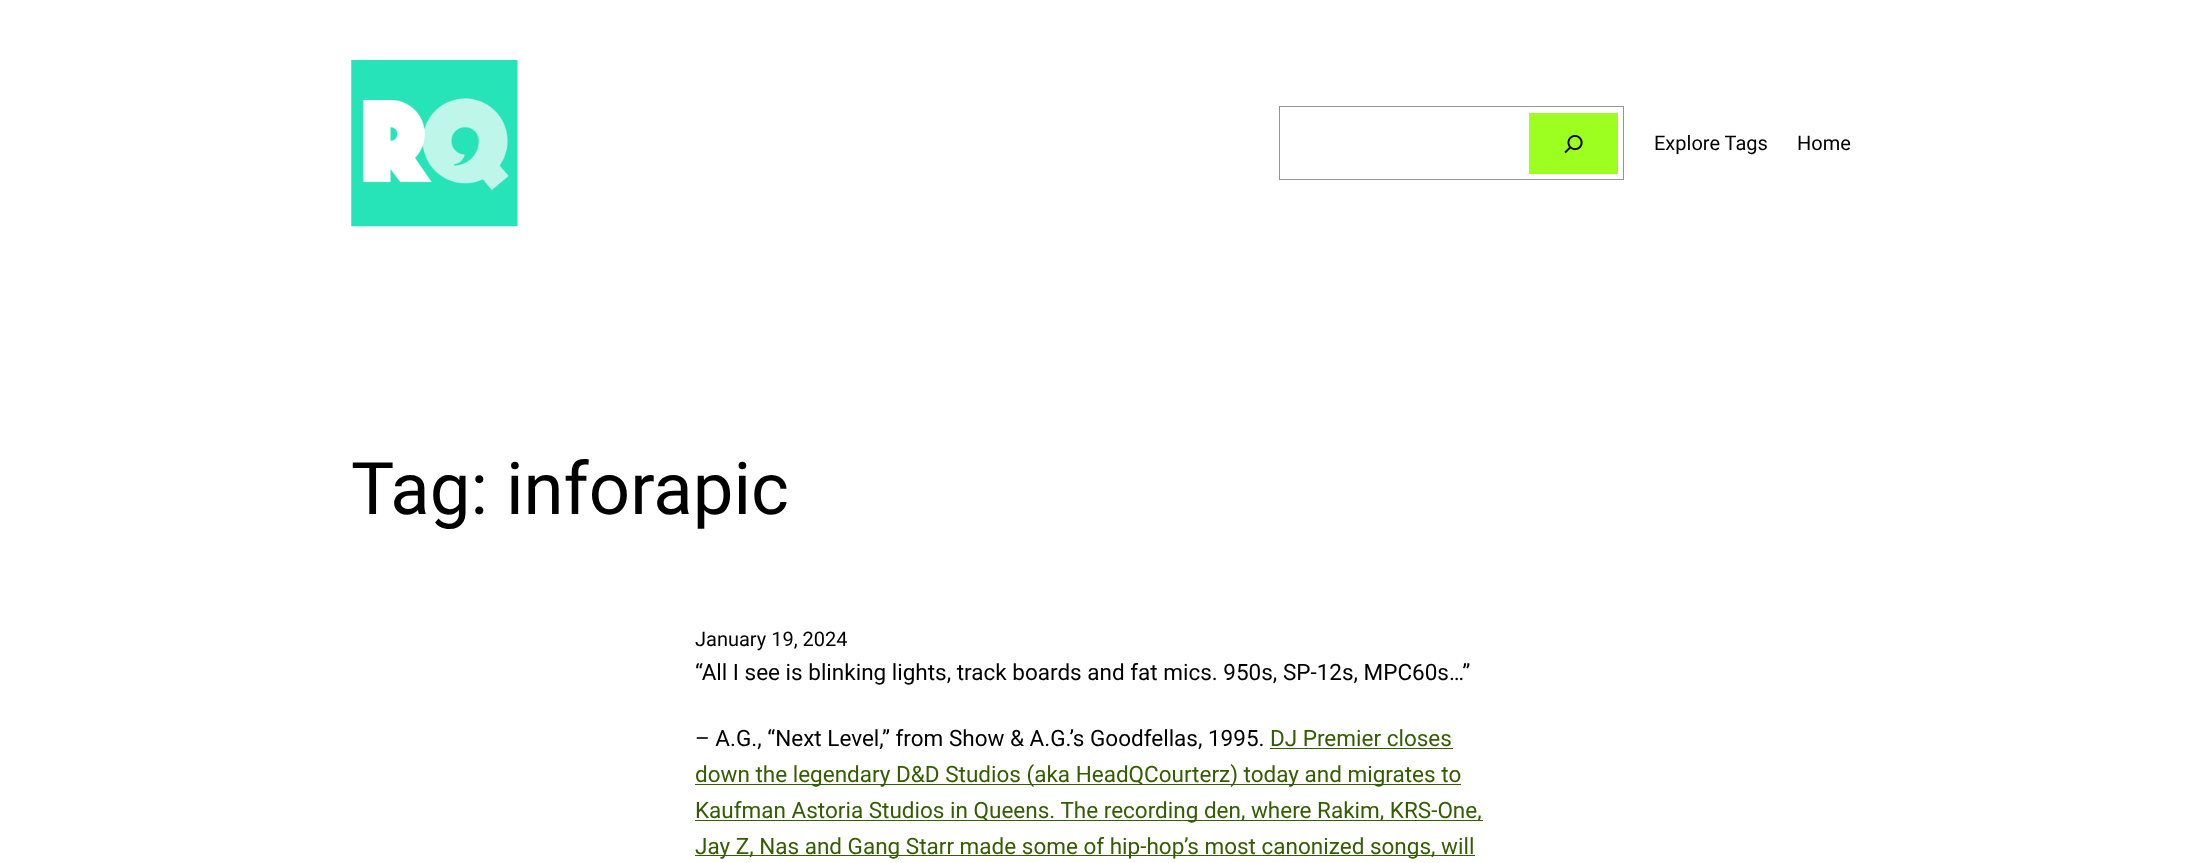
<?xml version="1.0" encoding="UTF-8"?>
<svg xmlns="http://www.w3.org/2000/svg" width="2202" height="863">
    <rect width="100%" height="100%" fill="#FFFFFF"/>
    <image x="351" y="60" width="167" height="167" href="img_01.png"/>
    <rect x="1279.5" y="106.5" width="344" height="73" fill="none" stroke="#949494"/>
    <rect x="1529" y="113" width="89" height="61" fill="#9DFF20"/>
    <image x="1564" y="135" width="19" height="19" href="img_02.png"/>
    <text x="1654" y="150" font-family="Roboto" font-size="20" fill="#000000">Explore Tags</text>
    <text x="1797" y="150" font-family="Roboto" font-size="20" fill="#000000">Home</text>
    <text x="351" y="514" font-family="Roboto" font-size="72.5" fill="#000000">Tag: inforapic</text>
    <text x="695" y="646" font-family="Roboto" font-size="20" fill="#000000">January 19, 2024</text>
    <text x="695" y="680" font-family="Roboto" font-size="22.5" fill="#000000">“All I see is blinking lights, track boards and fat mics. 950s, SP-12s, MPC60s…”</text>
    <text x="695" y="746" font-family="Roboto" font-size="22.5" fill="#000000">– A.G., “Next Level,” from Show &amp; A.G.’s Goodfellas, 1995.</text>
    <text x="1270" y="746" font-family="Roboto" font-size="22.5" fill="#345C00">DJ Premier closes</text>
    <rect x="1270" y="748" width="183" height="1" fill="#345C00"/>
    <rect x="695" y="784" width="766" height="1" fill="#345C00"/>
    <text x="695" y="782" font-family="Roboto" font-size="22.5" fill="#345C00">down the legendary D&amp;D Studios (aka HeadQCourterz) today and migrates to</text>
    <rect x="695" y="820" width="788" height="1" fill="#345C00"/>
    <text x="695" y="818" font-family="Roboto" font-size="22.5" fill="#345C00">Kaufman Astoria Studios in Queens. The recording den, where Rakim, KRS-One,</text>
    <rect x="695" y="855" width="780" height="1" fill="#345C00"/>
    <text x="695" y="854" font-family="Roboto" font-size="22.5" fill="#345C00">Jay Z, Nas and Gang Starr made some of hip-hop’s most canonized songs, will</text>
</svg>
